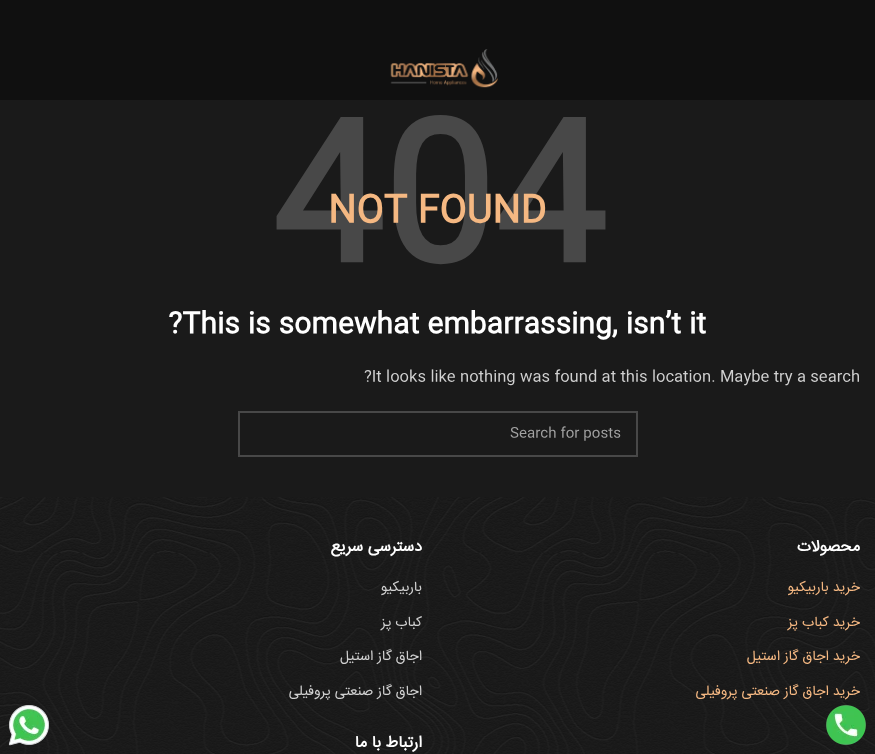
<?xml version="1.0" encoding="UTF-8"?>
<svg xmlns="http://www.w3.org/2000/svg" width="875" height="754">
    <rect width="100%" height="100%" fill="#1A1A1A"/>
    <rect x="0" y="0" width="875" height="100" fill="#101010"/>
    <image x="390" y="49" width="108" height="39" href="img_01.png"/>
    <text x="271" y="253" font-family="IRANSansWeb" font-size="184" font-weight="700" fill="#484848">404</text>
    <text x="328" y="221" font-family="IRANSansWeb" font-size="36.75" font-weight="700" fill="#F5B882">NOT FOUND</text>
    <text x="168" y="332" font-family="IRANSansWeb" font-size="28" font-weight="700" fill="#FFFFFF">?This is somewhat embarrassing, isn’t it</text>
    <text x="364" y="381" font-family="IRANSansWeb" font-size="15.4" fill="#D1D1D1">?It looks like nothing was found at this location. Maybe try a search</text>
    <rect x="239" y="412" width="398" height="44" fill="none" stroke="#484848" stroke-width="2"/>
    <text x="510" y="437" font-family="IRANSansWeb" font-size="14" fill="#A3A3A3">Search for posts</text>
    <rect x="0" y="497" width="875" height="257" fill="#0A0A0A"/>
    <image x="0" y="497" width="875" height="257" href="img_02.png"/>
    <text x="860" y="551" font-family="IRANSansWeb" font-size="16" font-weight="700" direction="rtl" fill="#FFFFFF">محصولات</text>
    <text x="860" y="591" font-family="IRANSansWeb" font-size="14" direction="rtl" fill="#F5B882">خرید باربیکیو</text>
    <text x="860" y="626" font-family="IRANSansWeb" font-size="14" direction="rtl" fill="#F5B882">خرید کباب پز</text>
    <text x="860" y="660" font-family="IRANSansWeb" font-size="14" direction="rtl" fill="#F5B882">خرید اجاق گاز استیل</text>
    <text x="860" y="695" font-family="IRANSansWeb" font-size="14" direction="rtl" fill="#F5B882">خرید اجاق گاز صنعتی پروفیلی</text>
    <text x="422" y="551" font-family="IRANSansWeb" font-size="16" font-weight="700" direction="rtl" fill="#FFFFFF">دسترسی سریع</text>
    <text x="422" y="591" font-family="IRANSansWeb" font-size="14" direction="rtl" fill="#D1D1D1">باربیکیو</text>
    <text x="422" y="626" font-family="IRANSansWeb" font-size="14" direction="rtl" fill="#D1D1D1">کباب پز</text>
    <text x="422" y="660" font-family="IRANSansWeb" font-size="14" direction="rtl" fill="#D1D1D1">اجاق گاز استیل</text>
    <text x="422" y="695" font-family="IRANSansWeb" font-size="14" direction="rtl" fill="#D1D1D1">اجاق گاز صنعتی پروفیلی</text>
    <text x="422" y="747" font-family="IRANSansWeb" font-size="16" font-weight="700" direction="rtl" fill="#FFFFFF">ارتباط با ما</text>
    <image x="8" y="705" width="41" height="41" href="img_03.png"/>
    <image x="826" y="705" width="40" height="40" href="img_04.png"/>
</svg>
